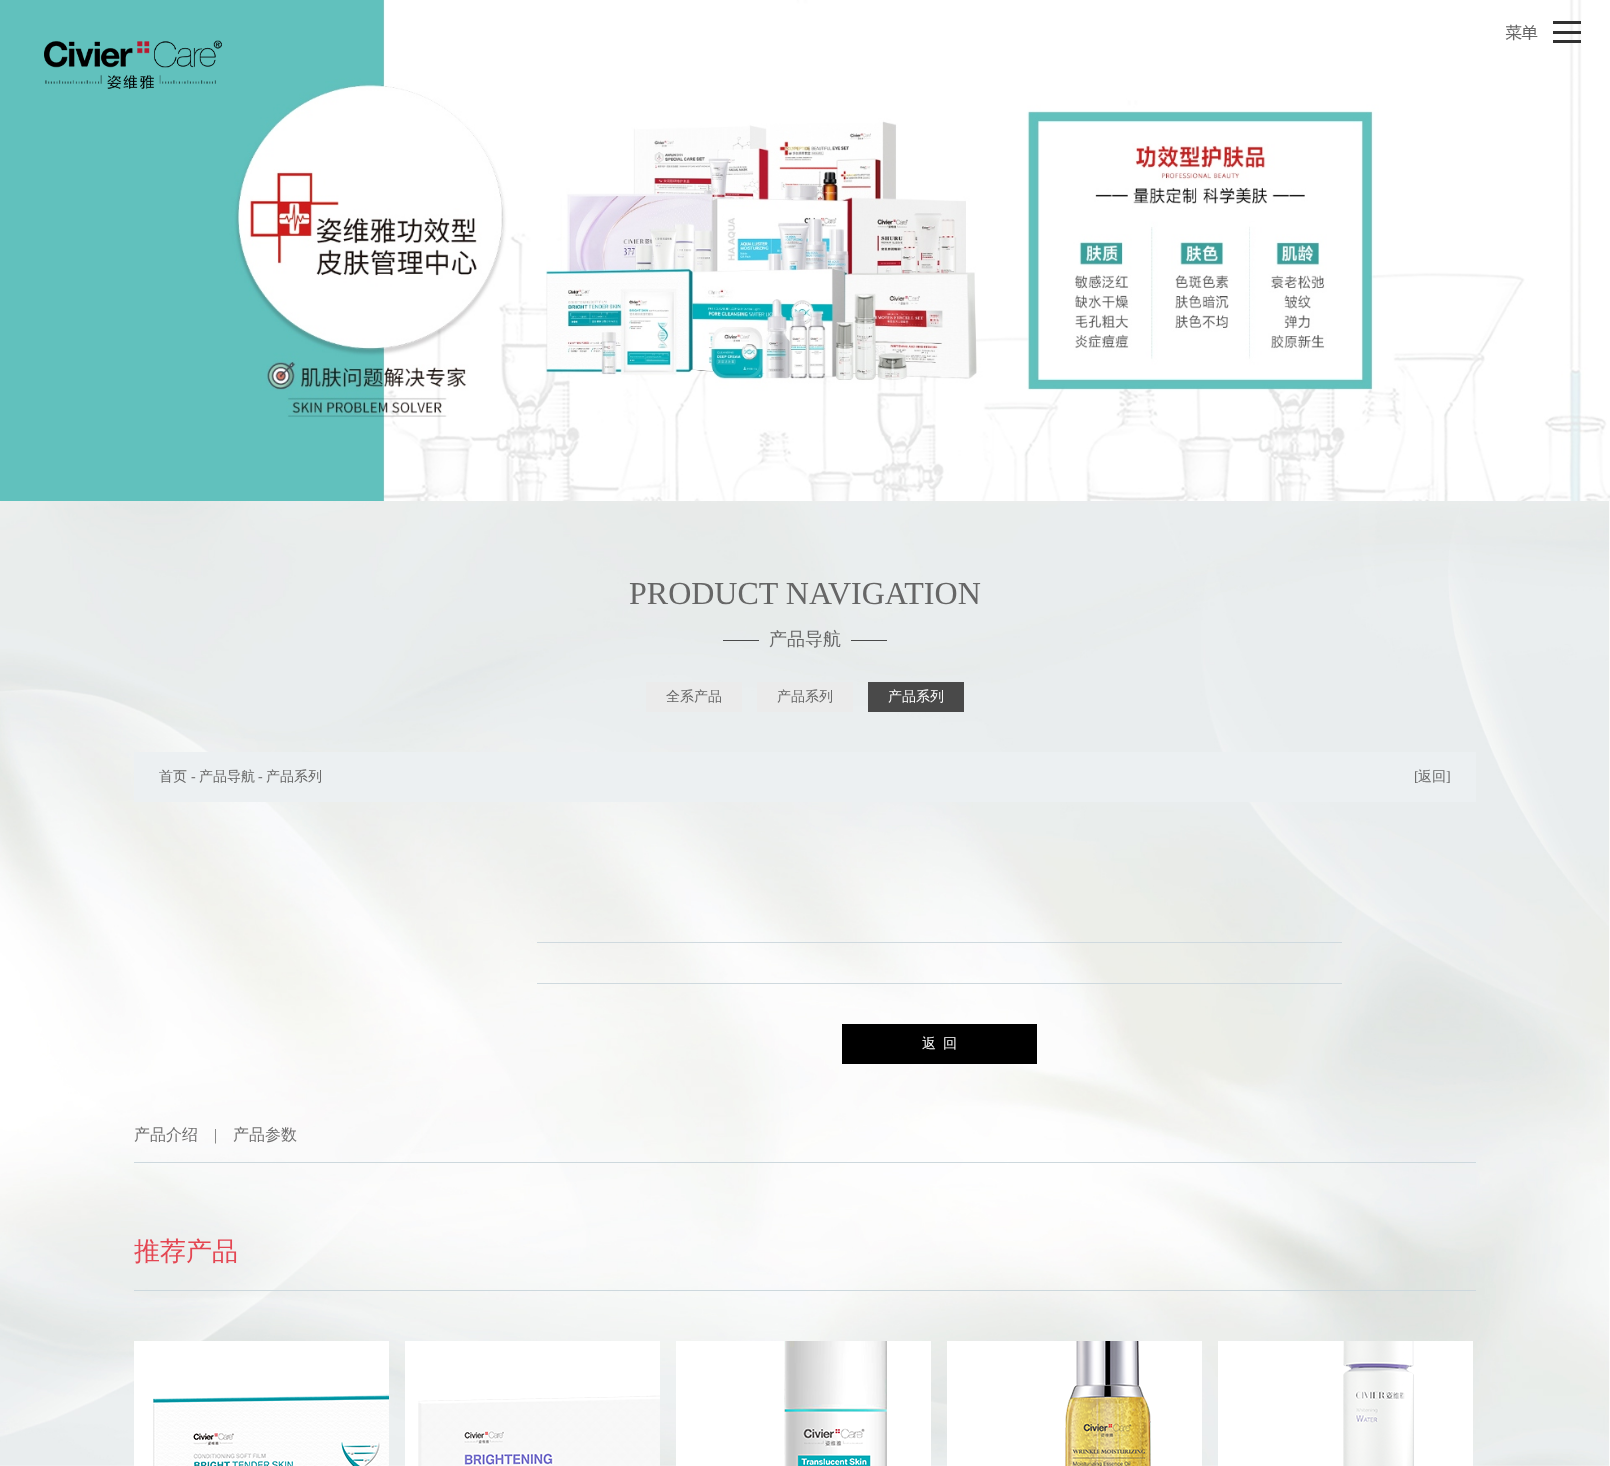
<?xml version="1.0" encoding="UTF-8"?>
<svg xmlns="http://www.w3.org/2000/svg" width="1610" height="1466">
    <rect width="100%" height="100%" fill="#FFFFFF"/>
    <image x="0" y="0" width="1610" height="501" href="img_01.png"/>
    <image x="44" y="40" width="178" height="49" href="img_02.png"/>
    <image x="1505" y="21" width="76" height="22" href="img_03.png"/>
    <image x="0" y="501" width="1610" height="965" href="img_04.png"/>
    <text x="629" y="604" font-family="Liberation Serif" font-size="32" fill="#666666">PRODUCT NAVIGATION</text>
    <rect x="723" y="640" width="36" height="1" fill="#494949"/>
    <text x="769" y="645" font-family="WenQuanYi Zen Hei" font-size="18" font-weight="500" fill="#666666">产品导航</text>
    <rect x="851" y="640" width="36" height="1" fill="#494949"/>
    <rect x="646" y="682" width="96" height="30" fill="#EBEBEB"/>
    <text x="666" y="701" font-family="WenQuanYi Zen Hei" font-size="14" font-weight="500" fill="#666666">全系产品</text>
    <rect x="757" y="682" width="96" height="30" fill="#EBEBEB"/>
    <text x="777" y="701" font-family="WenQuanYi Zen Hei" font-size="14" font-weight="500" fill="#666666">产品系列</text>
    <rect x="868" y="682" width="96" height="30" fill="#494949"/>
    <text x="888" y="701" font-family="WenQuanYi Zen Hei" font-size="14" font-weight="500" fill="#FFFFFF">产品系列</text>
    <rect x="134" y="752" width="1342" height="50" fill="#ECF0F2"/>
    <text x="159" y="781" font-family="WenQuanYi Zen Hei" font-size="14" font-weight="500" fill="#666666">首页</text>
    <text x="191" y="781" font-family="Liberation Serif" font-size="14" fill="#666666">-</text>
    <text x="199" y="781" font-family="WenQuanYi Zen Hei" font-size="14" font-weight="500" fill="#666666">产品导航</text>
    <text x="258" y="781" font-family="Liberation Serif" font-size="14" fill="#666666">-</text>
    <text x="266" y="781" font-family="WenQuanYi Zen Hei" font-size="14" font-weight="500" fill="#666666">产品系列</text>
    <text x="1414" y="781" font-family="Liberation Serif" font-size="14" fill="#666666">[</text>
    <text x="1418" y="781" font-family="WenQuanYi Zen Hei" font-size="14" font-weight="500" fill="#666666">返回</text>
    <text x="1446" y="781" font-family="Liberation Serif" font-size="14" fill="#666666">]</text>
    <rect x="537" y="942" width="805" height="1" fill="#CFD9DE"/>
    <rect x="537" y="983" width="805" height="1" fill="#CFD9DE"/>
    <rect x="842" y="1024" width="195" height="40" fill="#000000"/>
    <text x="922" y="1048" font-family="WenQuanYi Zen Hei" font-size="14" font-weight="500" fill="#FFFFFF">返</text>
    <text x="943" y="1048" font-family="WenQuanYi Zen Hei" font-size="14" font-weight="500" fill="#FFFFFF">回</text>
    <rect x="134" y="1162" width="1342" height="1" fill="#CDD8DD"/>
    <text x="134" y="1140" font-family="WenQuanYi Zen Hei" font-size="16" font-weight="500" fill="#707070">产品介绍</text>
    <text x="214" y="1140" font-family="Liberation Serif" font-size="16" fill="#707070">|</text>
    <text x="233" y="1140" font-family="WenQuanYi Zen Hei" font-size="16" font-weight="500" fill="#707070">产品参数</text>
    <rect x="134" y="1290" width="1342" height="1" fill="#CDD8DD"/>
    <text x="134" y="1260" font-family="WenQuanYi Zen Hei" font-size="26" font-weight="500" fill="#E44652">推荐产品</text>
    <rect x="134" y="1341" width="255" height="125" fill="#FFFFFF"/>
    <image x="153" y="1394" width="236" height="72" href="img_05.png"/>
    <rect x="405" y="1341" width="255" height="125" fill="#FFFFFF"/>
    <image x="418" y="1395" width="242" height="71" href="img_06.png"/>
    <rect x="676" y="1341" width="255" height="125" fill="#FFFFFF"/>
    <image x="784" y="1341" width="103" height="125" href="img_07.png"/>
    <rect x="947" y="1341" width="255" height="125" fill="#FFFFFF"/>
    <image x="1065" y="1341" width="86" height="125" href="img_08.png"/>
    <rect x="1218" y="1341" width="255" height="125" fill="#FFFFFF"/>
    <image x="1343" y="1341" width="71" height="125" href="img_09.png"/>
</svg>
